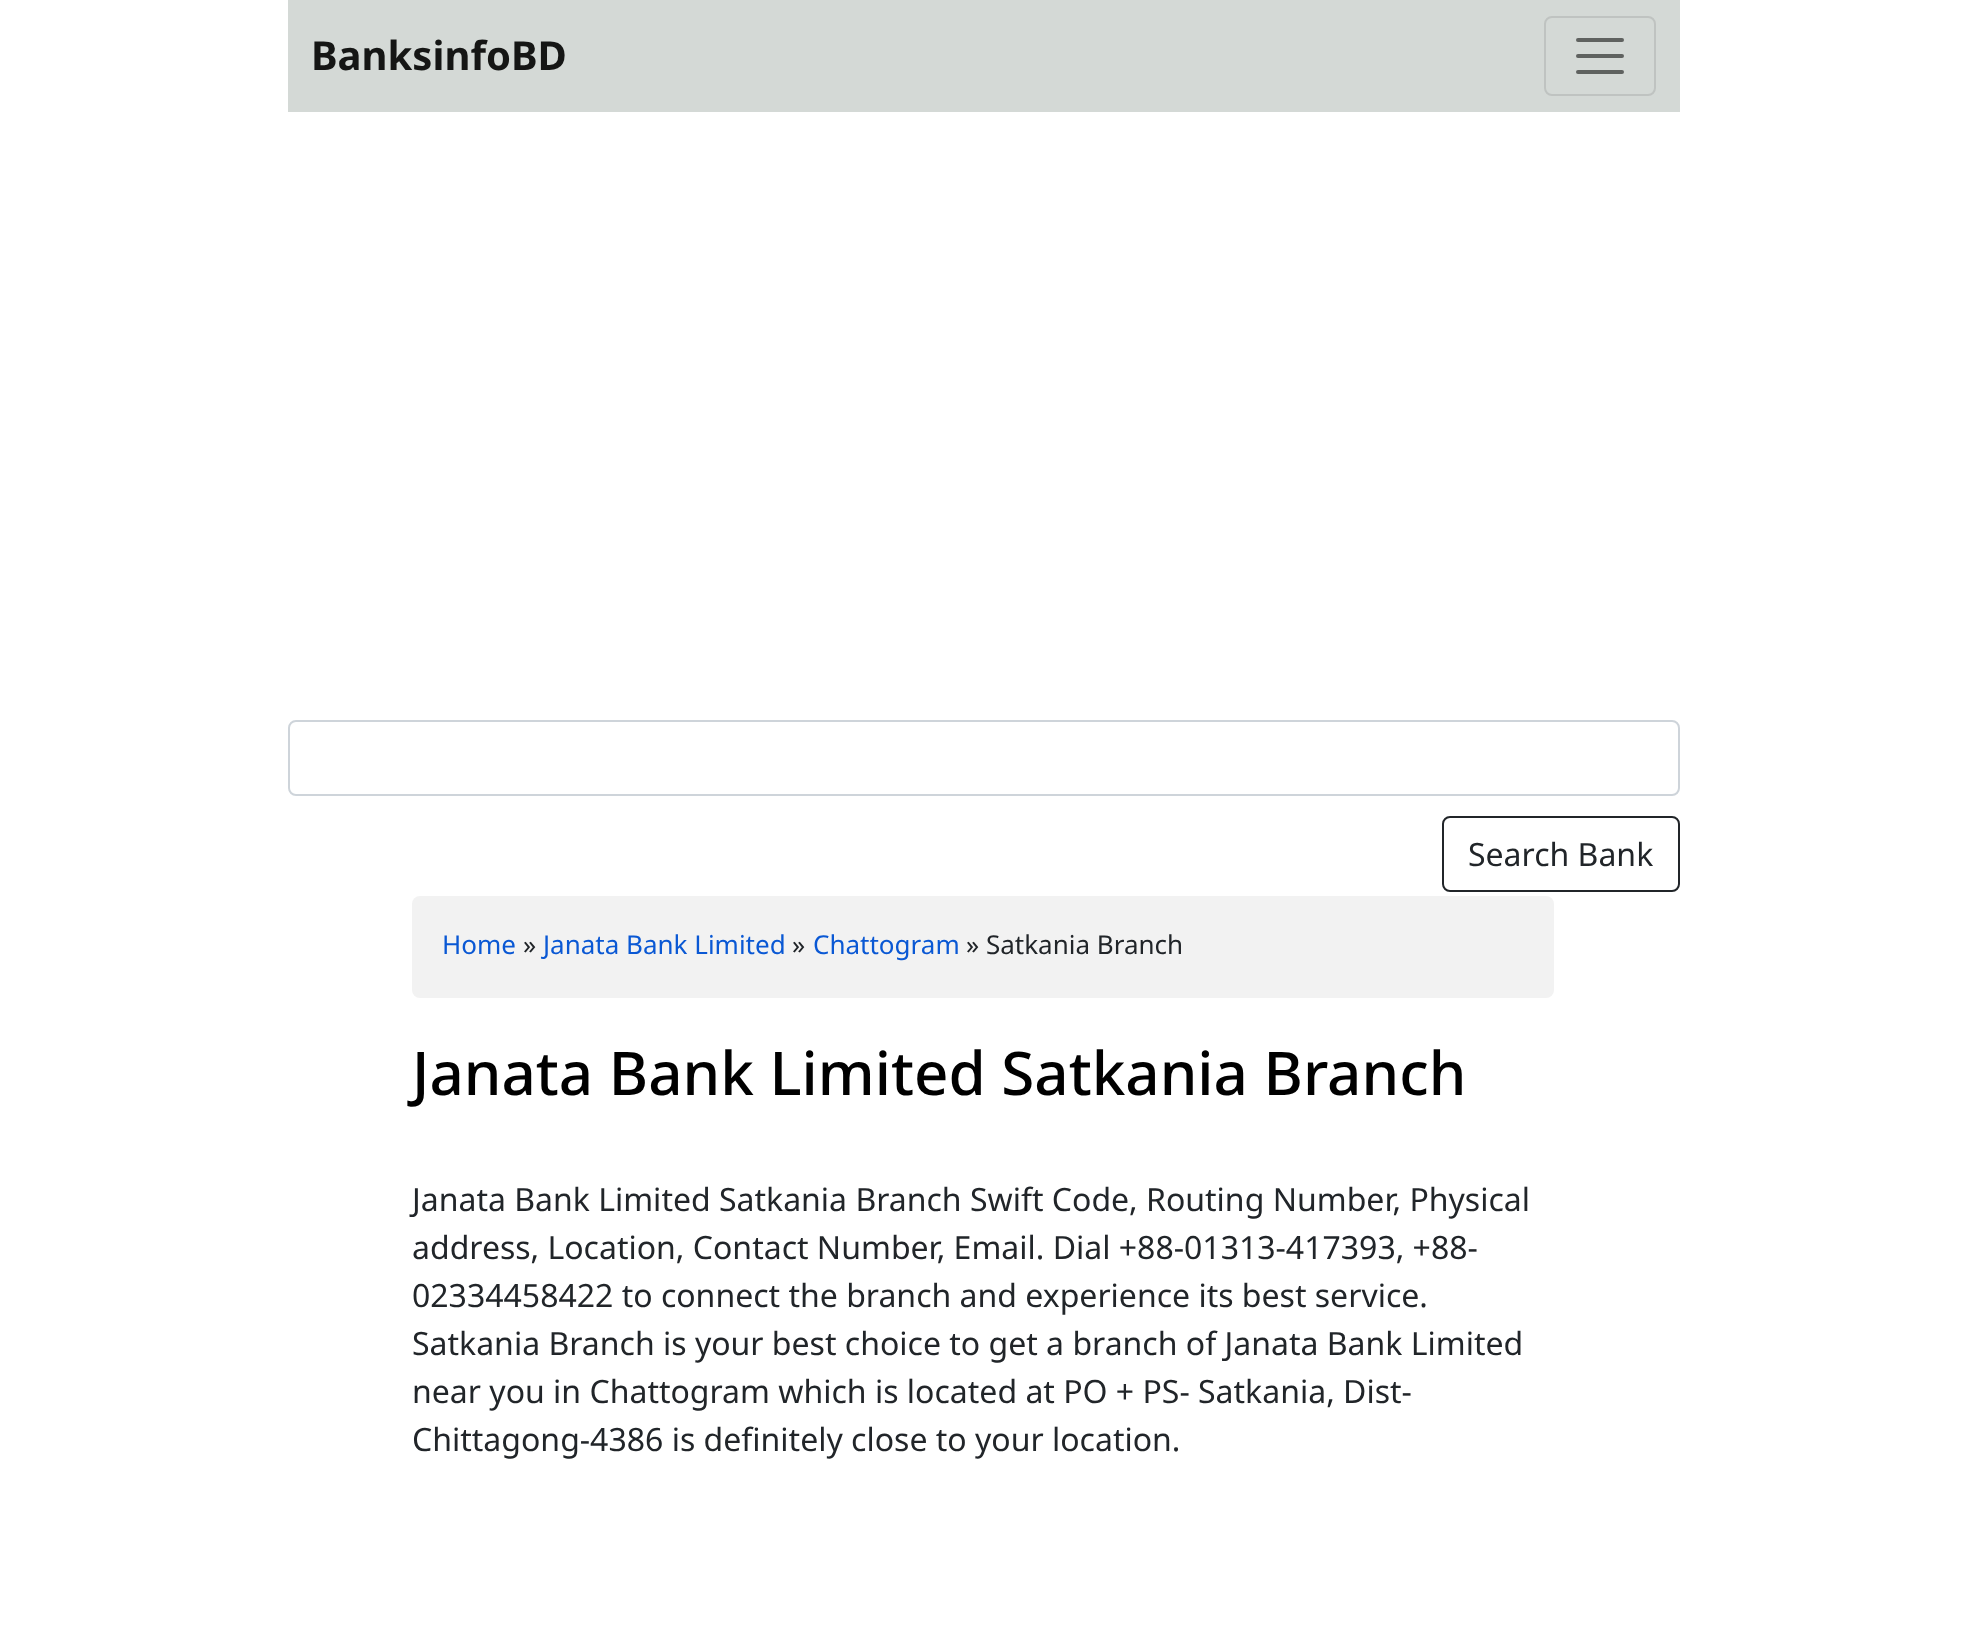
<?xml version="1.0" encoding="UTF-8"?>
<svg xmlns="http://www.w3.org/2000/svg" width="1965" height="1627">
    <rect width="100%" height="100%" fill="#FFFFFF"/>
    <rect x="288" y="0" width="1392" height="112" fill="#D4D9D6"/>
    <text x="311" y="70" font-family="Noto Sans" font-size="40" font-weight="700" fill="#151615">BanksinfoBD</text>
    <rect x="1545" y="17" width="110" height="78" rx="7" fill="none" stroke="#BFC3C1" stroke-width="2"/>
    <path d="M 1578 40 H 1622 M 1578 56 H 1622 M 1578 72 H 1622" fill="none" stroke="#5F6260" stroke-width="4" stroke-linecap="round"/>
    <rect x="289" y="721" width="1390" height="74" rx="7" fill="none" stroke="#CED4DA" stroke-width="2"/>
    <rect x="1443" y="817" width="236" height="74" rx="7" fill="none" stroke="#212529" stroke-width="2"/>
    <text x="1468" y="866" font-family="Noto Sans" font-size="32" fill="#212529">Search Bank</text>
    <rect x="412" y="896" width="1142" height="102" rx="8" fill="#F2F2F2"/>
    <text x="442" y="954" font-family="Noto Sans" font-size="26" fill="#0A58D4">Home</text>
    <text x="523" y="954" font-family="Noto Sans" font-size="26" fill="#212529">»</text>
    <text x="543" y="954" font-family="Noto Sans" font-size="26" fill="#0A58D4">Janata Bank Limited</text>
    <text x="792" y="954" font-family="Noto Sans" font-size="26" fill="#212529">»</text>
    <text x="813" y="954" font-family="Noto Sans" font-size="26" fill="#0A58D4">Chattogram</text>
    <text x="966" y="954" font-family="Noto Sans" font-size="26" fill="#212529">» Satkania Branch</text>
    <text x="412" y="1095" font-family="Noto Sans" font-size="60.1" font-weight="500" fill="#000000">Janata Bank Limited Satkania Branch</text>
    <text font-family="Noto Sans" font-size="32" fill="#212529">
        <tspan x="412" y="1211">Janata Bank Limited Satkania Branch Swift Code, Routing Number, Physical</tspan>
        <tspan x="412" y="1259">address, Location, Contact Number, Email. Dial +88-01313-417393, +88-</tspan>
        <tspan x="412" y="1307">02334458422 to connect the branch and experience its best service.</tspan>
        <tspan x="412" y="1355">Satkania Branch is your best choice to get a branch of Janata Bank Limited</tspan>
        <tspan x="412" y="1403">near you in Chattogram which is located at PO + PS- Satkania, Dist-</tspan>
        <tspan x="412" y="1451">Chittagong-4386 is definitely close to your location.</tspan>
    </text>
</svg>
